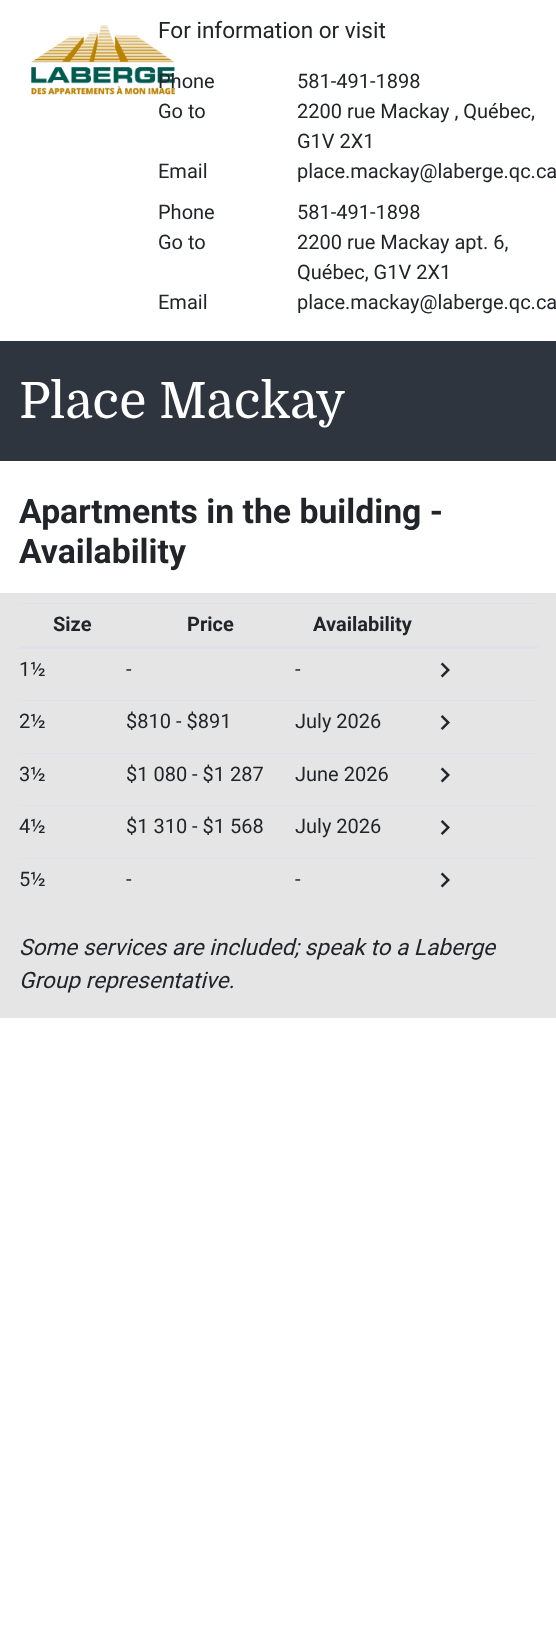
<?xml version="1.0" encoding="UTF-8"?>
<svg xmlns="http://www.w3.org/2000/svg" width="556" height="1641">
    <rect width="100%" height="100%" fill="#FFFFFF"/>
    <image x="31" y="25" width="144" height="70" href="img_01.png"/>
    <text x="158" y="38" font-family="Roboto" font-size="22.6" fill="#212529">For information or visit</text>
    <text x="158" y="88" font-family="Roboto" font-size="20" fill="#212529">Phone</text>
    <text x="297" y="88" font-family="Roboto" font-size="20" fill="#212529">581-491-1898</text>
    <text x="158" y="118" font-family="Roboto" font-size="20" fill="#212529">Go to</text>
    <text font-family="Roboto" font-size="20" fill="#212529">
        <tspan x="297" y="118">2200 rue Mackay , Québec,</tspan>
        <tspan x="297" y="148">G1V 2X1</tspan>
    </text>
    <text x="158" y="178" font-family="Roboto" font-size="20" fill="#212529">Email</text>
    <text x="297" y="178" font-family="Roboto" font-size="20" fill="#212529">place.mackay@laberge.qc.ca</text>
    <text x="158" y="219" font-family="Roboto" font-size="20" fill="#212529">Phone</text>
    <text x="297" y="219" font-family="Roboto" font-size="20" fill="#212529">581-491-1898</text>
    <text x="158" y="249" font-family="Roboto" font-size="20" fill="#212529">Go to</text>
    <text font-family="Roboto" font-size="20" fill="#212529">
        <tspan x="297" y="249">2200 rue Mackay apt. 6,</tspan>
        <tspan x="297" y="279">Québec, G1V 2X1</tspan>
    </text>
    <text x="158" y="309" font-family="Roboto" font-size="20" fill="#212529">Email</text>
    <text x="297" y="309" font-family="Roboto" font-size="20" fill="#212529">place.mackay@laberge.qc.ca</text>
    <rect x="0" y="341" width="556" height="120" fill="#2F353E"/>
    <text x="19" y="418" font-family="Domine" font-size="50" fill="#FFFFFF">Place Mackay</text>
    <text font-family="Roboto" font-size="33.75" font-weight="700" fill="#212529">
        <tspan x="19" y="523">Apartments in the building -</tspan>
        <tspan x="19" y="563">Availability</tspan>
    </text>
    <rect x="0" y="593" width="556" height="425" fill="#E5E5E5"/>
    <rect x="19" y="603" width="519" height="1" fill="#DEE2E6"/>
    <rect x="19" y="646" width="519" height="3" fill="#DEE2E6"/>
    <text x="53" y="631" font-family="Roboto" font-size="20" font-weight="700" fill="#212529">Size</text>
    <text x="187" y="631" font-family="Roboto" font-size="20" font-weight="700" fill="#212529">Price</text>
    <text x="313" y="631" font-family="Roboto" font-size="20" font-weight="700" fill="#212529">Availability</text>
    <text x="19" y="676" font-family="Roboto" font-size="20" fill="#212529">1½</text>
    <text x="126" y="676" font-family="Roboto" font-size="20" fill="#212529">-</text>
    <text x="295" y="676" font-family="Roboto" font-size="20" fill="#212529">-</text>
    <image x="440" y="662" width="10" height="16" href="img_02.png"/>
    <rect x="19" y="700" width="519" height="1" fill="#DEE2E6"/>
    <image x="440" y="715" width="10" height="15" href="img_03.png"/>
    <text x="19" y="728" font-family="Roboto" font-size="20" fill="#212529">2½</text>
    <text x="126" y="728" font-family="Roboto" font-size="20" fill="#212529">$810 - $891</text>
    <text x="295" y="728" font-family="Roboto" font-size="20" fill="#212529">July 2026</text>
    <rect x="19" y="753" width="519" height="1" fill="#DEE2E6"/>
    <image x="440" y="767" width="10" height="16" href="img_02.png"/>
    <text x="19" y="781" font-family="Roboto" font-size="20" fill="#212529">3½</text>
    <text x="126" y="781" font-family="Roboto" font-size="20" fill="#212529">$1 080 - $1 287</text>
    <text x="295" y="781" font-family="Roboto" font-size="20" fill="#212529">June 2026</text>
    <rect x="19" y="805" width="519" height="1" fill="#DEE2E6"/>
    <image x="440" y="820" width="10" height="15" href="img_03.png"/>
    <text x="19" y="833" font-family="Roboto" font-size="20" fill="#212529">4½</text>
    <text x="126" y="833" font-family="Roboto" font-size="20" fill="#212529">$1 310 - $1 568</text>
    <text x="295" y="833" font-family="Roboto" font-size="20" fill="#212529">July 2026</text>
    <rect x="19" y="858" width="519" height="1" fill="#DEE2E6"/>
    <image x="440" y="872" width="10" height="16" href="img_02.png"/>
    <text x="19" y="886" font-family="Roboto" font-size="20" fill="#212529">5½</text>
    <text x="126" y="886" font-family="Roboto" font-size="20" fill="#212529">-</text>
    <text x="295" y="886" font-family="Roboto" font-size="20" fill="#212529">-</text>
    <text font-family="Roboto" font-size="22.6" font-style="italic" fill="#212529">
        <tspan x="19" y="955">Some services are included; speak to a Laberge</tspan>
        <tspan x="19" y="988">Group representative.</tspan>
    </text>
</svg>
